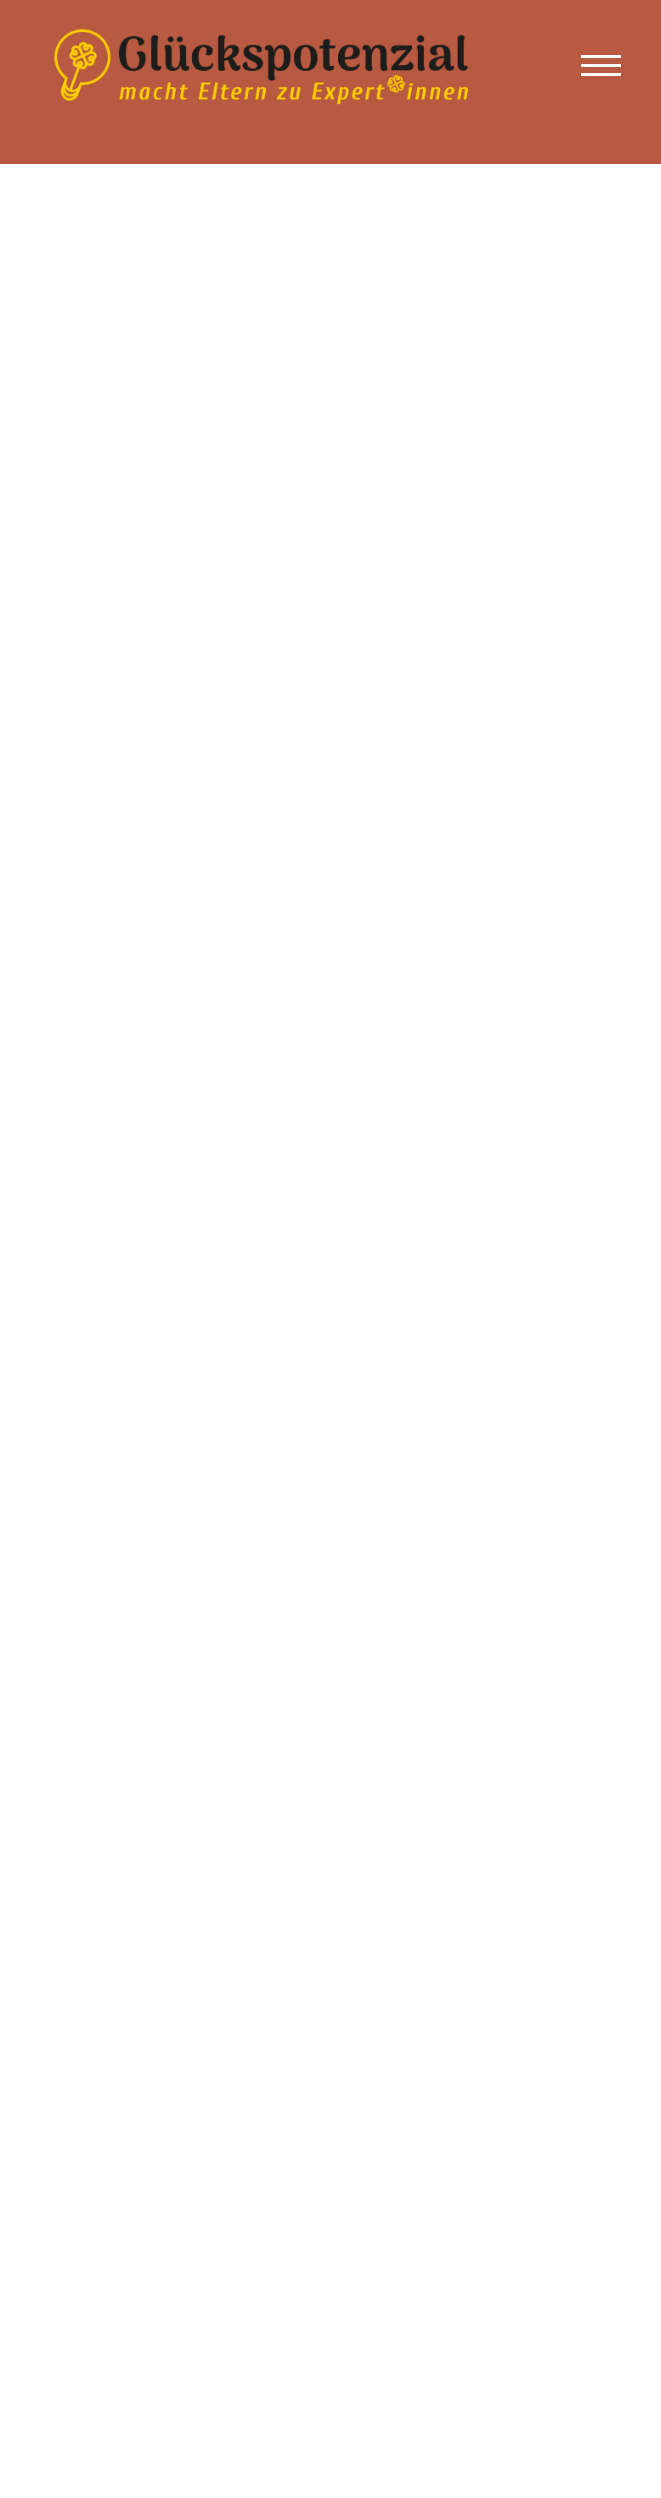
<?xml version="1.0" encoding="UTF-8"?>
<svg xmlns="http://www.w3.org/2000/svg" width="661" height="2498">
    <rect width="100%" height="100%" fill="#FFFFFF"/>
    <rect x="0" y="0" width="661" height="164" fill="#B85A41"/>
    <image x="54" y="29" width="414" height="76" href="img_01.png"/>
    <rect x="581" y="55" width="40" height="3" fill="#FFFFFF"/>
    <rect x="581" y="64" width="40" height="3" fill="#FFFFFF"/>
    <rect x="581" y="73" width="40" height="3" fill="#FFFFFF"/>
</svg>
